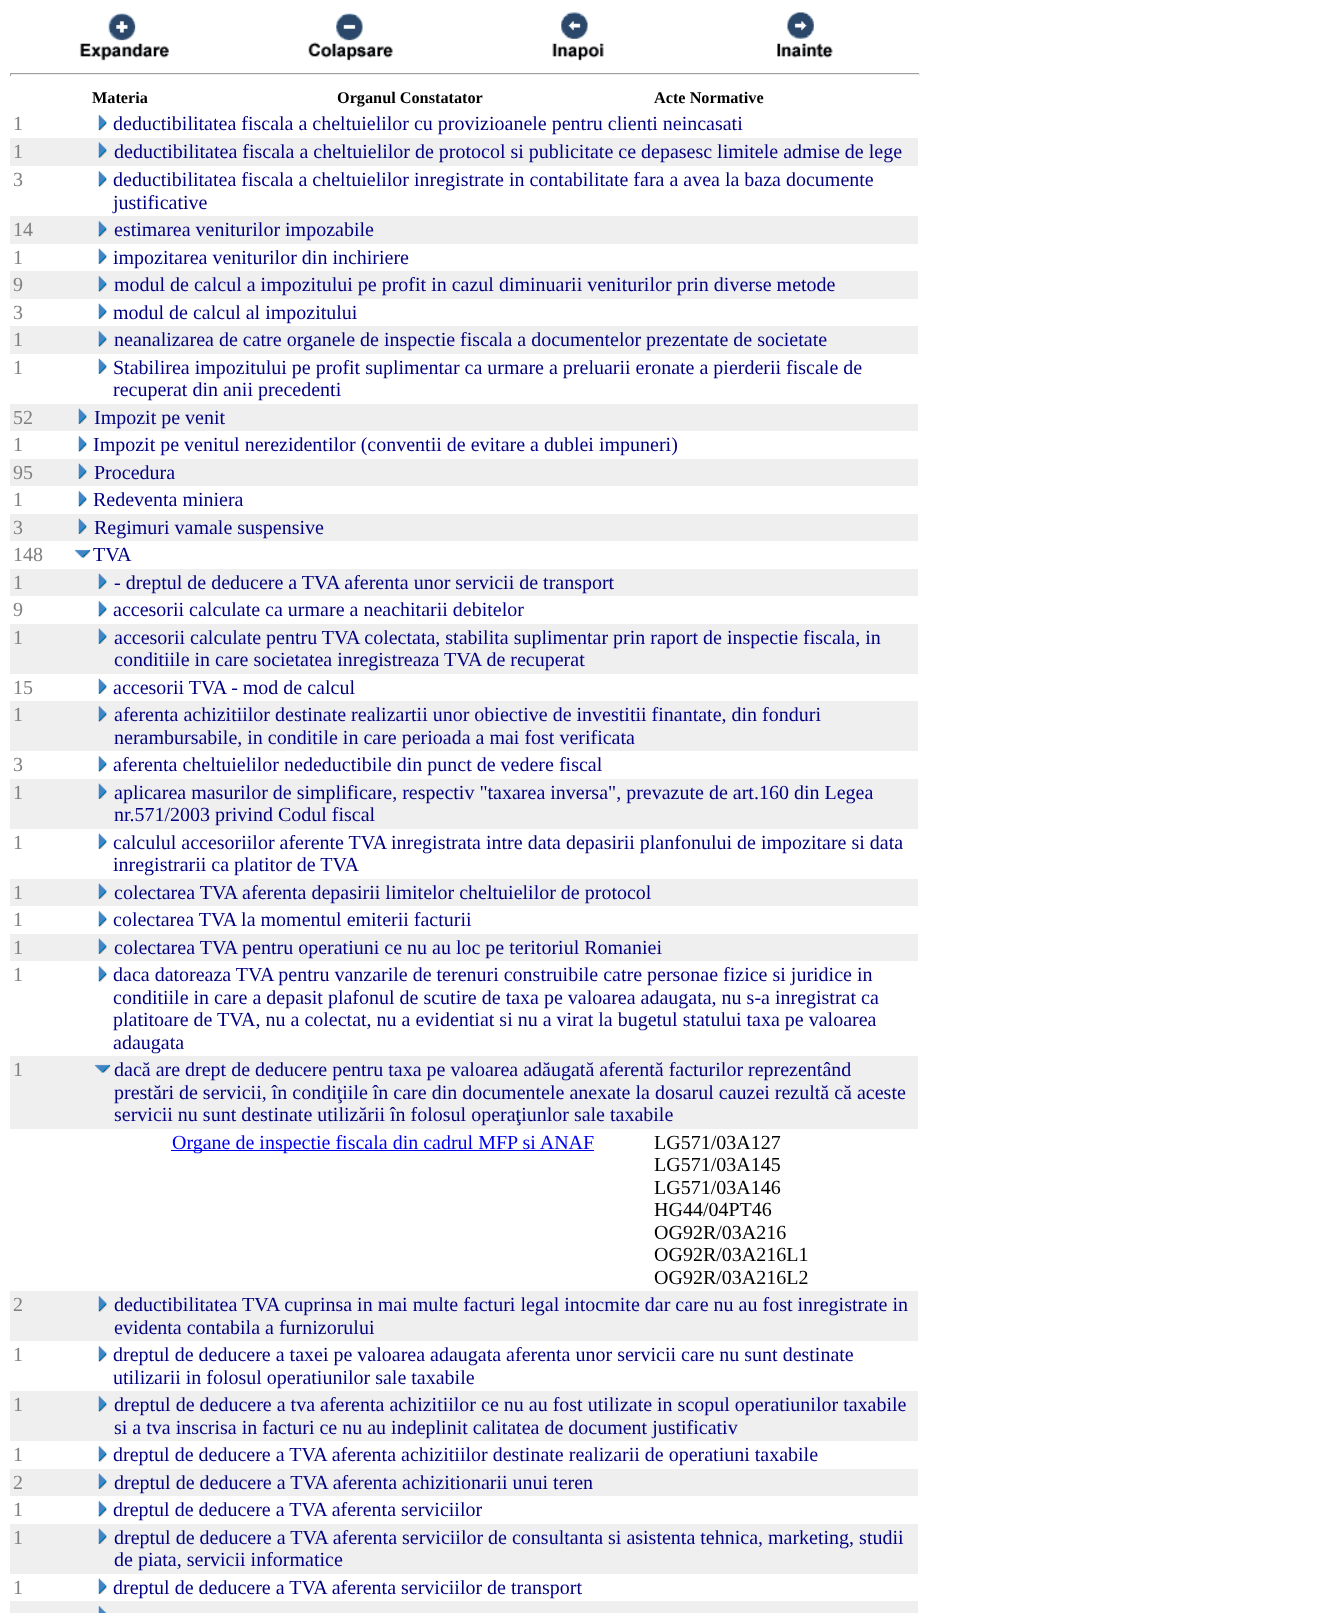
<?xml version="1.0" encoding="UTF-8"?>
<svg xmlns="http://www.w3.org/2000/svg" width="1340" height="1613">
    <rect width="100%" height="100%" fill="#FFFFFF"/>
    <image x="79" y="13" width="90" height="48" href="img_01.png"/>
    <image x="308" y="13" width="85" height="48" href="img_02.png"/>
    <image x="552" y="12" width="52" height="49" href="img_03.png"/>
    <image x="777" y="12" width="56" height="46" href="img_04.png"/>
    <rect x="10" y="73" width="910" height="1" fill="#9F9F9F"/>
    <rect x="919" y="73" width="1" height="3" fill="#EEEEEE"/>
    <rect x="10" y="74" width="910" height="1" fill="#EEEEEE"/>
    <rect x="10" y="73" width="1" height="3" fill="#9F9F9F"/>
    <text x="92" y="103" font-family="Liberation Serif" font-size="16.25" font-weight="700" fill="#000000">Materia</text>
    <text x="337" y="103" font-family="Liberation Serif" font-size="16.25" font-weight="700" fill="#000000">Organul Constatator</text>
    <text x="654" y="103" font-family="Liberation Serif" font-size="16.25" font-weight="700" fill="#000000">Acte Normative</text>
    <text x="13" y="130" font-family="Liberation Serif" font-size="20" fill="#808080">1</text>
    <image x="98" y="114" width="9" height="17" href="img_05.png"/>
    <text x="113" y="130" font-family="Liberation Serif" font-size="20" fill="#000080">deductibilitatea fiscala a cheltuielilor cu provizioanele pentru clienti neincasati</text>
    <rect x="10" y="138" width="908" height="28" fill="#EFEFEF"/>
    <text x="13" y="158" font-family="Liberation Serif" font-size="20" fill="#808080">1</text>
    <image x="98" y="142" width="9" height="16" href="img_06.png"/>
    <text x="114" y="158" font-family="Liberation Serif" font-size="20" fill="#000080">deductibilitatea fiscala a cheltuielilor de protocol si publicitate ce depasesc limitele admise de lege</text>
    <text x="13" y="186" font-family="Liberation Serif" font-size="20" fill="#808080">3</text>
    <image x="98" y="171" width="9" height="16" href="img_07.png"/>
    <text font-family="Liberation Serif" font-size="20" fill="#000080">
        <tspan x="113" y="186">deductibilitatea fiscala a cheltuielilor inregistrate in contabilitate fara a avea la baza documente</tspan>
        <tspan x="113" y="209">justificative</tspan>
    </text>
    <rect x="10" y="216" width="908" height="28" fill="#EFEFEF"/>
    <text x="13" y="236" font-family="Liberation Serif" font-size="20" fill="#808080">14</text>
    <image x="98" y="221" width="9" height="16" href="img_08.png"/>
    <text x="114" y="236" font-family="Liberation Serif" font-size="20" fill="#000080">estimarea veniturilor impozabile</text>
    <text x="13" y="264" font-family="Liberation Serif" font-size="20" fill="#808080">1</text>
    <image x="98" y="248" width="9" height="16" href="img_09.png"/>
    <text x="113" y="264" font-family="Liberation Serif" font-size="20" fill="#000080">impozitarea veniturilor din inchiriere</text>
    <rect x="10" y="271" width="908" height="28" fill="#EFEFEF"/>
    <text x="13" y="291" font-family="Liberation Serif" font-size="20" fill="#808080">9</text>
    <image x="98" y="276" width="9" height="16" href="img_08.png"/>
    <text x="114" y="291" font-family="Liberation Serif" font-size="20" fill="#000080">modul de calcul a impozitului pe profit in cazul diminuarii veniturilor prin diverse metode</text>
    <text x="13" y="319" font-family="Liberation Serif" font-size="20" fill="#808080">3</text>
    <image x="98" y="303" width="9" height="16" href="img_09.png"/>
    <text x="113" y="319" font-family="Liberation Serif" font-size="20" fill="#000080">modul de calcul al impozitului</text>
    <rect x="10" y="326" width="908" height="28" fill="#EFEFEF"/>
    <text x="13" y="346" font-family="Liberation Serif" font-size="20" fill="#808080">1</text>
    <image x="98" y="331" width="9" height="16" href="img_08.png"/>
    <text x="114" y="346" font-family="Liberation Serif" font-size="20" fill="#000080">neanalizarea de catre organele de inspectie fiscala a documentelor prezentate de societate</text>
    <text x="13" y="374" font-family="Liberation Serif" font-size="20" fill="#808080">1</text>
    <image x="98" y="358" width="9" height="16" href="img_09.png"/>
    <text font-family="Liberation Serif" font-size="20" fill="#000080">
        <tspan x="113" y="374">Stabilirea impozitului pe profit suplimentar ca urmare a preluarii eronate a pierderii fiscale de</tspan>
        <tspan x="113" y="396">recuperat din anii precedenti</tspan>
    </text>
    <rect x="10" y="404" width="908" height="27" fill="#EFEFEF"/>
    <text x="13" y="424" font-family="Liberation Serif" font-size="20" fill="#808080">52</text>
    <image x="78" y="408" width="9" height="16" href="img_10.png"/>
    <text x="94" y="424" font-family="Liberation Serif" font-size="20" fill="#000080">Impozit pe venit</text>
    <text x="13" y="451" font-family="Liberation Serif" font-size="20" fill="#808080">1</text>
    <image x="78" y="436" width="9" height="16" href="img_11.png"/>
    <text x="93" y="451" font-family="Liberation Serif" font-size="20" fill="#000080">Impozit pe venitul nerezidentilor (conventii de evitare a dublei impuneri)</text>
    <rect x="10" y="459" width="908" height="27" fill="#EFEFEF"/>
    <text x="13" y="479" font-family="Liberation Serif" font-size="20" fill="#808080">95</text>
    <image x="78" y="463" width="9" height="16" href="img_10.png"/>
    <text x="94" y="479" font-family="Liberation Serif" font-size="20" fill="#000080">Procedura</text>
    <text x="13" y="506" font-family="Liberation Serif" font-size="20" fill="#808080">1</text>
    <image x="78" y="491" width="9" height="16" href="img_11.png"/>
    <text x="93" y="506" font-family="Liberation Serif" font-size="20" fill="#000080">Redeventa miniera</text>
    <rect x="10" y="514" width="908" height="27" fill="#EFEFEF"/>
    <text x="13" y="534" font-family="Liberation Serif" font-size="20" fill="#808080">3</text>
    <image x="78" y="518" width="9" height="16" href="img_10.png"/>
    <text x="94" y="534" font-family="Liberation Serif" font-size="20" fill="#000080">Regimuri vamale suspensive</text>
    <text x="13" y="561" font-family="Liberation Serif" font-size="20" fill="#808080">148</text>
    <image x="74" y="549" width="17" height="9" href="img_12.png"/>
    <text x="93" y="561" font-family="Liberation Serif" font-size="20" fill="#000080">TVA</text>
    <rect x="10" y="569" width="908" height="27" fill="#EFEFEF"/>
    <text x="13" y="589" font-family="Liberation Serif" font-size="20" fill="#808080">1</text>
    <image x="98" y="573" width="9" height="16" href="img_13.png"/>
    <text x="114" y="589" font-family="Liberation Serif" font-size="20" fill="#000080">- dreptul de deducere a TVA aferenta unor servicii de transport</text>
    <text x="13" y="616" font-family="Liberation Serif" font-size="20" fill="#808080">9</text>
    <image x="98" y="601" width="9" height="16" href="img_07.png"/>
    <text x="113" y="616" font-family="Liberation Serif" font-size="20" fill="#000080">accesorii calculate ca urmare a neachitarii debitelor</text>
    <rect x="10" y="624" width="908" height="50" fill="#EFEFEF"/>
    <text x="13" y="644" font-family="Liberation Serif" font-size="20" fill="#808080">1</text>
    <image x="98" y="628" width="9" height="16" href="img_13.png"/>
    <text font-family="Liberation Serif" font-size="20" fill="#000080">
        <tspan x="114" y="644">accesorii calculate pentru TVA colectata, stabilita suplimentar prin raport de inspectie fiscala, in</tspan>
        <tspan x="114" y="666">conditiile in care societatea inregistreaza TVA de recuperat</tspan>
    </text>
    <text x="13" y="694" font-family="Liberation Serif" font-size="20" fill="#808080">15</text>
    <image x="98" y="678" width="9" height="16" href="img_09.png"/>
    <text x="113" y="694" font-family="Liberation Serif" font-size="20" fill="#000080">accesorii TVA - mod de calcul</text>
    <rect x="10" y="701" width="908" height="50" fill="#EFEFEF"/>
    <text x="13" y="721" font-family="Liberation Serif" font-size="20" fill="#808080">1</text>
    <image x="98" y="706" width="9" height="16" href="img_08.png"/>
    <text font-family="Liberation Serif" font-size="20" fill="#000080">
        <tspan x="114" y="721">aferenta achizitiilor destinate realizartii unor obiective de investitii finantate, din fonduri</tspan>
        <tspan x="114" y="744">nerambursabile, in conditile in care perioada a mai fost verificata</tspan>
    </text>
    <text x="13" y="771" font-family="Liberation Serif" font-size="20" fill="#808080">3</text>
    <image x="98" y="756" width="9" height="16" href="img_07.png"/>
    <text x="113" y="771" font-family="Liberation Serif" font-size="20" fill="#000080">aferenta cheltuielilor nedeductibile din punct de vedere fiscal</text>
    <rect x="10" y="779" width="908" height="50" fill="#EFEFEF"/>
    <text x="13" y="799" font-family="Liberation Serif" font-size="20" fill="#808080">1</text>
    <image x="98" y="783" width="9" height="16" href="img_14.png"/>
    <text font-family="Liberation Serif" font-size="20" fill="#000080">
        <tspan x="114" y="799">aplicarea masurilor de simplificare, respectiv "taxarea inversa", prevazute de art.160 din Legea</tspan>
        <tspan x="114" y="821">nr.571/2003 privind Codul fiscal</tspan>
    </text>
    <text x="13" y="849" font-family="Liberation Serif" font-size="20" fill="#808080">1</text>
    <image x="98" y="833" width="9" height="16" href="img_09.png"/>
    <text font-family="Liberation Serif" font-size="20" fill="#000080">
        <tspan x="113" y="849">calculul accesoriilor aferente TVA inregistrata intre data depasirii planfonului de impozitare si data</tspan>
        <tspan x="113" y="871">inregistrarii ca platitor de TVA</tspan>
    </text>
    <rect x="10" y="879" width="908" height="27" fill="#EFEFEF"/>
    <text x="13" y="899" font-family="Liberation Serif" font-size="20" fill="#808080">1</text>
    <image x="98" y="883" width="9" height="16" href="img_13.png"/>
    <text x="114" y="899" font-family="Liberation Serif" font-size="20" fill="#000080">colectarea TVA aferenta depasirii limitelor cheltuielilor de protocol</text>
    <text x="13" y="926" font-family="Liberation Serif" font-size="20" fill="#808080">1</text>
    <image x="98" y="911" width="9" height="16" href="img_07.png"/>
    <text x="113" y="926" font-family="Liberation Serif" font-size="20" fill="#000080">colectarea TVA la momentul emiterii facturii</text>
    <rect x="10" y="934" width="908" height="27" fill="#EFEFEF"/>
    <text x="13" y="954" font-family="Liberation Serif" font-size="20" fill="#808080">1</text>
    <image x="98" y="938" width="9" height="16" href="img_13.png"/>
    <text x="114" y="954" font-family="Liberation Serif" font-size="20" fill="#000080">colectarea TVA pentru operatiuni ce nu au loc pe teritoriul Romaniei</text>
    <text x="13" y="981" font-family="Liberation Serif" font-size="20" fill="#808080">1</text>
    <image x="98" y="966" width="9" height="16" href="img_07.png"/>
    <text font-family="Liberation Serif" font-size="20" fill="#000080">
        <tspan x="113" y="981">daca datoreaza TVA pentru vanzarile de terenuri construibile catre personae fizice si juridice in</tspan>
        <tspan x="113" y="1004">conditiile in care a depasit plafonul de scutire de taxa pe valoarea adaugata, nu s-a inregistrat ca</tspan>
        <tspan x="113" y="1026">platitoare de TVA, nu a colectat, nu a evidentiat si nu a virat la bugetul statului taxa pe valoarea</tspan>
        <tspan x="113" y="1049">adaugata</tspan>
    </text>
    <rect x="10" y="1056" width="908" height="73" fill="#EFEFEF"/>
    <text x="13" y="1076" font-family="Liberation Serif" font-size="20" fill="#808080">1</text>
    <image x="94" y="1064" width="17" height="9" href="img_15.png"/>
    <text font-family="Liberation Serif" font-size="20" fill="#000080">
        <tspan x="114" y="1076">dacă are drept de deducere pentru taxa pe valoarea adăugată aferentă facturilor reprezentând</tspan>
        <tspan x="114" y="1099">prestări de servicii, în condiţiile în care din documentele anexate la dosarul cauzei rezultă că aceste</tspan>
        <tspan x="114" y="1121">servicii nu sunt destinate utilizării în folosul operaţiunlor sale taxabile</tspan>
    </text>
    <rect x="171" y="1150" width="423" height="1" fill="#0000EE"/>
    <text x="172" y="1149" font-family="Liberation Serif" font-size="20" fill="#0000EE">Organe de inspectie fiscala din cadrul MFP si ANAF</text>
    <text font-family="Liberation Serif" font-size="20" fill="#000000">
        <tspan x="654" y="1149">LG571/03A127</tspan>
        <tspan x="654" y="1171">LG571/03A145</tspan>
        <tspan x="654" y="1194">LG571/03A146</tspan>
        <tspan x="654" y="1216">HG44/04PT46</tspan>
        <tspan x="654" y="1239">OG92R/03A216</tspan>
        <tspan x="654" y="1261">OG92R/03A216L1</tspan>
        <tspan x="654" y="1284">OG92R/03A216L2</tspan>
    </text>
    <rect x="10" y="1291" width="908" height="50" fill="#EFEFEF"/>
    <text x="13" y="1311" font-family="Liberation Serif" font-size="20" fill="#808080">2</text>
    <image x="98" y="1296" width="9" height="16" href="img_08.png"/>
    <text font-family="Liberation Serif" font-size="20" fill="#000080">
        <tspan x="114" y="1311">deductibilitatea TVA cuprinsa in mai multe facturi legal intocmite dar care nu au fost inregistrate in</tspan>
        <tspan x="114" y="1334">evidenta contabila a furnizorului</tspan>
    </text>
    <text x="13" y="1361" font-family="Liberation Serif" font-size="20" fill="#808080">1</text>
    <image x="98" y="1346" width="9" height="16" href="img_07.png"/>
    <text font-family="Liberation Serif" font-size="20" fill="#000080">
        <tspan x="113" y="1361">dreptul de deducere a taxei pe valoarea adaugata aferenta unor servicii care nu sunt destinate</tspan>
        <tspan x="113" y="1384">utilizarii in folosul operatiunilor sale taxabile</tspan>
    </text>
    <rect x="10" y="1391" width="908" height="50" fill="#EFEFEF"/>
    <text x="13" y="1411" font-family="Liberation Serif" font-size="20" fill="#808080">1</text>
    <image x="98" y="1396" width="9" height="16" href="img_08.png"/>
    <text font-family="Liberation Serif" font-size="20" fill="#000080">
        <tspan x="114" y="1411">dreptul de deducere a tva aferenta achizitiilor ce nu au fost utilizate in scopul operatiunilor taxabile</tspan>
        <tspan x="114" y="1434">si a tva inscrisa in facturi ce nu au indeplinit calitatea de document justificativ</tspan>
    </text>
    <text x="13" y="1461" font-family="Liberation Serif" font-size="20" fill="#808080">1</text>
    <image x="98" y="1446" width="9" height="16" href="img_07.png"/>
    <text x="113" y="1461" font-family="Liberation Serif" font-size="20" fill="#000080">dreptul de deducere a TVA aferenta achizitiilor destinate realizarii de operatiuni taxabile</text>
    <rect x="10" y="1469" width="908" height="27" fill="#EFEFEF"/>
    <text x="13" y="1489" font-family="Liberation Serif" font-size="20" fill="#808080">2</text>
    <image x="98" y="1473" width="9" height="16" href="img_13.png"/>
    <text x="114" y="1489" font-family="Liberation Serif" font-size="20" fill="#000080">dreptul de deducere a TVA aferenta achizitionarii unui teren</text>
    <text x="13" y="1516" font-family="Liberation Serif" font-size="20" fill="#808080">1</text>
    <image x="98" y="1501" width="9" height="16" href="img_07.png"/>
    <text x="113" y="1516" font-family="Liberation Serif" font-size="20" fill="#000080">dreptul de deducere a TVA aferenta serviciilor</text>
    <rect x="10" y="1524" width="908" height="50" fill="#EFEFEF"/>
    <text x="13" y="1544" font-family="Liberation Serif" font-size="20" fill="#808080">1</text>
    <image x="98" y="1528" width="9" height="16" href="img_13.png"/>
    <text font-family="Liberation Serif" font-size="20" fill="#000080">
        <tspan x="114" y="1544">dreptul de deducere a TVA aferenta serviciilor de consultanta si asistenta tehnica, marketing, studii</tspan>
        <tspan x="114" y="1566">de piata, servicii informatice</tspan>
    </text>
    <text x="13" y="1594" font-family="Liberation Serif" font-size="20" fill="#808080">1</text>
    <image x="98" y="1578" width="9" height="16" href="img_09.png"/>
    <text x="113" y="1594" font-family="Liberation Serif" font-size="20" fill="#000080">dreptul de deducere a TVA aferenta serviciilor de transport</text>
    <rect x="10" y="1601" width="908" height="12" fill="#EFEFEF"/>
    <image x="98" y="1606" width="9" height="7" href="img_16.png"/>
</svg>
